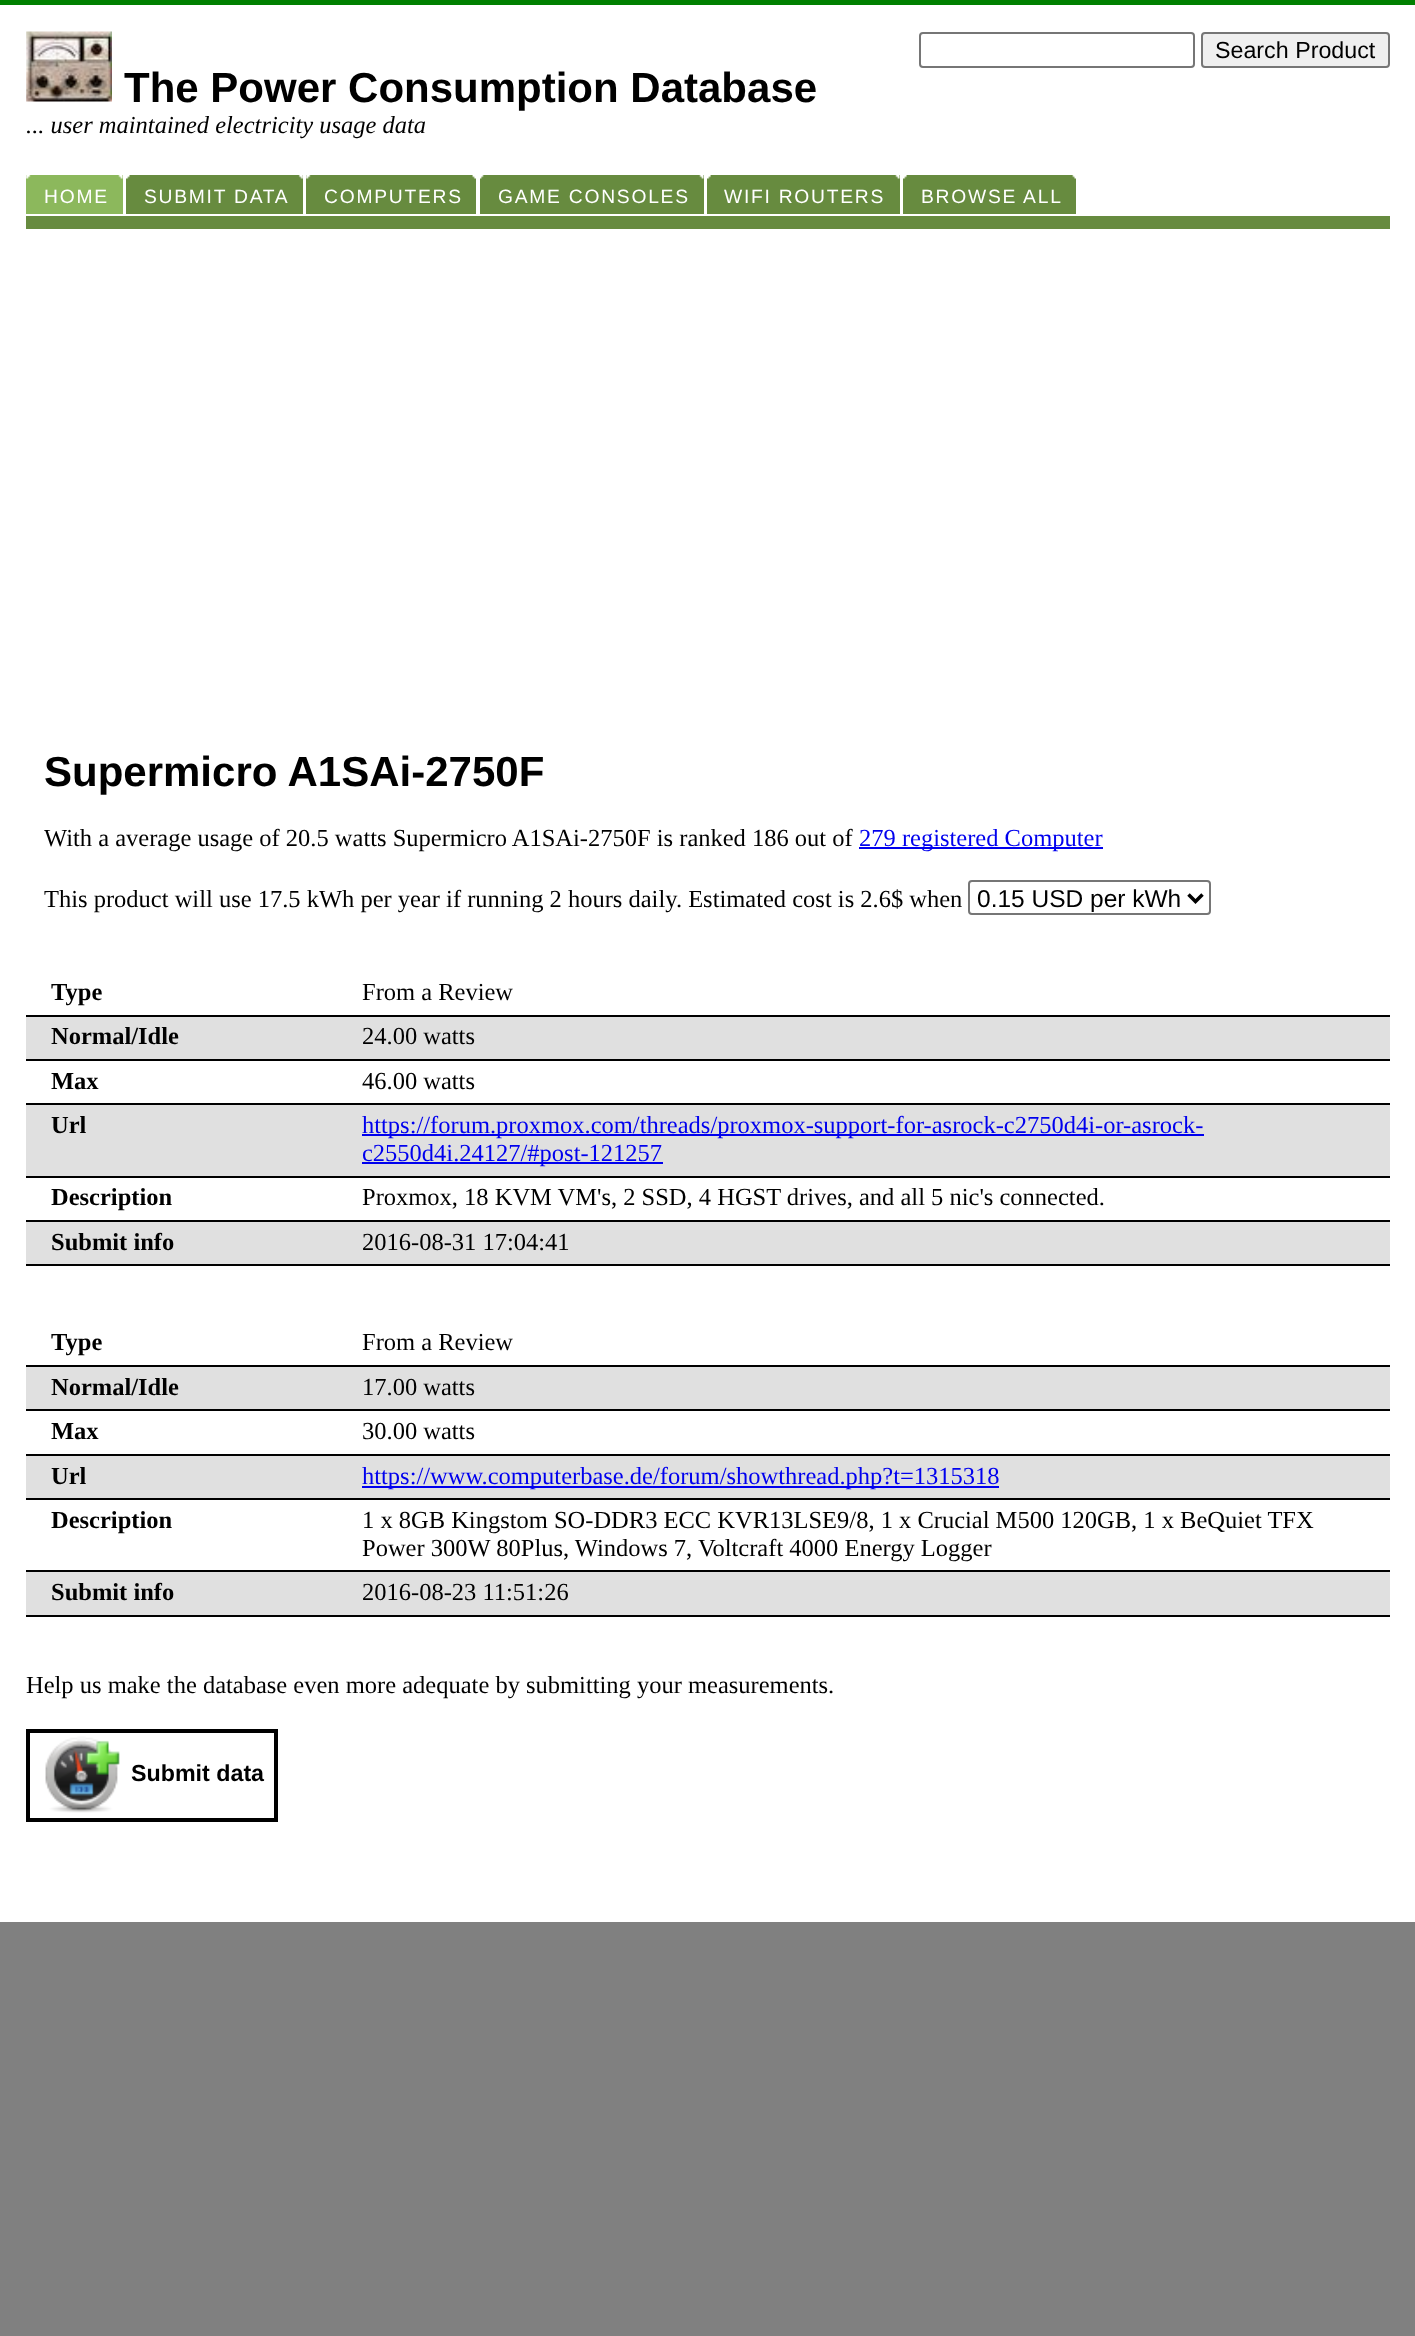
<?xml version="1.0" encoding="UTF-8"?>
<svg xmlns="http://www.w3.org/2000/svg" width="1415" height="2336">
    <rect width="100%" height="100%" fill="#808080"/>
    <rect x="0" y="5" width="1415" height="1917" fill="#FFFFFF"/>
    <rect x="0" y="0" width="1415" height="5" fill="#008000"/>
    <rect x="920" y="33" width="274" height="34" rx="3" fill="none" stroke="#767676" stroke-width="2"/>
    <rect x="1202" y="33" width="187" height="34" rx="3" fill="#EFEFEF" stroke="#767676" stroke-width="2"/>
    <text x="1215" y="58" font-family="Liberation Sans" font-size="23.25" fill="#000000">Search Product</text>
    <image x="26" y="31" width="86" height="71" href="img_01.png"/>
    <text x="124" y="102" font-family="Liberation Sans" font-size="42" font-weight="700" fill="#000000">The Power Consumption Database</text>
    <text x="26" y="133" font-family="Liberation Serif" font-size="24.5" font-style="italic" fill="#000000">... user maintained electricity usage data</text>
    <rect x="26" y="175" width="97" height="39" fill="#8CB85C"/>
    <image x="26" y="175" width="5" height="4" href="img_02.png"/>
    <image x="118" y="175" width="5" height="4" href="img_03.png"/>
    <text x="44" y="203" font-family="Liberation Sans" font-size="19.25" letter-spacing="1.75" fill="#FFFFFF">HOME</text>
    <rect x="126" y="175" width="177" height="39" fill="#678B3F"/>
    <image x="126" y="175" width="4" height="4" href="img_04.png"/>
    <image x="298" y="175" width="5" height="4" href="img_05.png"/>
    <text x="144" y="203" font-family="Liberation Sans" font-size="19.25" letter-spacing="1.75" fill="#FFFFFF">SUBMIT DATA</text>
    <rect x="306" y="175" width="170" height="39" fill="#678B3F"/>
    <image x="306" y="175" width="5" height="4" href="img_06.png"/>
    <image x="472" y="175" width="4" height="4" href="img_07.png"/>
    <text x="324" y="203" font-family="Liberation Sans" font-size="19.25" letter-spacing="1.75" fill="#FFFFFF">COMPUTERS</text>
    <rect x="480" y="175" width="224" height="39" fill="#678B3F"/>
    <image x="480" y="175" width="4" height="4" href="img_08.png"/>
    <image x="699" y="175" width="5" height="4" href="img_09.png"/>
    <text x="498" y="203" font-family="Liberation Sans" font-size="19.25" letter-spacing="1.75" fill="#FFFFFF">GAME CONSOLES</text>
    <rect x="707" y="175" width="193" height="39" fill="#678B3F"/>
    <image x="707" y="175" width="4" height="4" href="img_10.png"/>
    <image x="895" y="175" width="5" height="4" href="img_09.png"/>
    <text x="724" y="203" font-family="Liberation Sans" font-size="19.25" letter-spacing="1.75" fill="#FFFFFF">WIFI ROUTERS</text>
    <rect x="903" y="175" width="173" height="39" fill="#678B3F"/>
    <image x="903" y="175" width="4" height="4" href="img_10.png"/>
    <image x="1072" y="175" width="4" height="4" href="img_11.png"/>
    <text x="921" y="203" font-family="Liberation Sans" font-size="19.25" letter-spacing="1.75" fill="#FFFFFF">BROWSE ALL</text>
    <rect x="26" y="216" width="1364" height="13" fill="#678B3F"/>
    <text x="44" y="786" font-family="Liberation Sans" font-size="42" font-weight="700" fill="#000000">Supermicro A1SAi-2750F</text>
    <text x="44" y="846" font-family="Liberation Serif" font-size="24.5" fill="#000000">With a average usage of 20.5 watts Supermicro A1SAi-2750F is ranked 186 out of</text>
    <rect x="859" y="847" width="244" height="2" fill="#0000EE"/>
    <text x="859" y="846" font-family="Liberation Serif" font-size="24.5" fill="#0000EE">279 registered Computer</text>
    <text x="44" y="907" font-family="Liberation Serif" font-size="24.5" fill="#000000">This product will use 17.5 kWh per year if running 2 hours daily. Estimated cost is 2.6$ when</text>
    <rect x="969" y="881" width="241" height="33" rx="3" fill="none" stroke="#767676" stroke-width="2"/>
    <path d="M 1188.5 894.5 L 1195.5 901.5 L 1202.5 894.5" fill="none" stroke="#000000" stroke-width="3.5"/>
    <text x="977" y="907" font-family="Liberation Sans" font-size="24.5" fill="#000000">0.15 USD per kWh</text>
    <text x="51" y="1000" font-family="Liberation Serif" font-size="24.5" font-weight="700" fill="#000000">Type</text>
    <rect x="26" y="1015" width="1364" height="2" fill="#000000"/>
    <text x="362" y="1000" font-family="Liberation Serif" font-size="24.5" fill="#000000">From a Review</text>
    <rect x="26" y="1017" width="1364" height="42" fill="#E0E0E0"/>
    <text x="51" y="1044" font-family="Liberation Serif" font-size="24.5" font-weight="700" fill="#000000">Normal/Idle</text>
    <rect x="26" y="1059" width="1364" height="2" fill="#000000"/>
    <text x="362" y="1044" font-family="Liberation Serif" font-size="24.5" fill="#000000">24.00 watts</text>
    <text x="51" y="1089" font-family="Liberation Serif" font-size="24.5" font-weight="700" fill="#000000">Max</text>
    <rect x="26" y="1103" width="1364" height="2" fill="#000000"/>
    <text x="362" y="1089" font-family="Liberation Serif" font-size="24.5" fill="#000000">46.00 watts</text>
    <rect x="26" y="1105" width="1364" height="71" fill="#E0E0E0"/>
    <text x="51" y="1133" font-family="Liberation Serif" font-size="24.5" font-weight="700" fill="#000000">Url</text>
    <rect x="26" y="1176" width="1364" height="2" fill="#000000"/>
    <rect x="362" y="1134" width="842" height="2" fill="#0000EE"/>
    <text x="362" y="1133" font-family="Liberation Serif" font-size="24.5" fill="#0000EE">https://forum.proxmox.com/threads/proxmox-support-for-asrock-c2750d4i-or-asrock-</text>
    <rect x="362" y="1162" width="301" height="2" fill="#0000EE"/>
    <text x="362" y="1161" font-family="Liberation Serif" font-size="24.5" fill="#0000EE">c2550d4i.24127/#post-121257</text>
    <text x="51" y="1205" font-family="Liberation Serif" font-size="24.5" font-weight="700" fill="#000000">Description</text>
    <rect x="26" y="1220" width="1364" height="2" fill="#000000"/>
    <text x="362" y="1205" font-family="Liberation Serif" font-size="24.5" fill="#000000">Proxmox, 18 KVM VM's, 2 SSD, 4 HGST drives, and all 5 nic's connected.</text>
    <rect x="26" y="1222" width="1364" height="42" fill="#E0E0E0"/>
    <text x="51" y="1250" font-family="Liberation Serif" font-size="24.5" font-weight="700" fill="#000000">Submit info</text>
    <rect x="26" y="1264" width="1364" height="2" fill="#000000"/>
    <text x="362" y="1250" font-family="Liberation Serif" font-size="24.5" fill="#000000">2016-08-31 17:04:41</text>
    <text x="51" y="1350" font-family="Liberation Serif" font-size="24.5" font-weight="700" fill="#000000">Type</text>
    <rect x="26" y="1365" width="1364" height="2" fill="#000000"/>
    <text x="362" y="1350" font-family="Liberation Serif" font-size="24.5" fill="#000000">From a Review</text>
    <rect x="26" y="1367" width="1364" height="42" fill="#E0E0E0"/>
    <text x="51" y="1395" font-family="Liberation Serif" font-size="24.5" font-weight="700" fill="#000000">Normal/Idle</text>
    <rect x="26" y="1409" width="1364" height="2" fill="#000000"/>
    <text x="362" y="1395" font-family="Liberation Serif" font-size="24.5" fill="#000000">17.00 watts</text>
    <text x="51" y="1439" font-family="Liberation Serif" font-size="24.5" font-weight="700" fill="#000000">Max</text>
    <rect x="26" y="1454" width="1364" height="2" fill="#000000"/>
    <text x="362" y="1439" font-family="Liberation Serif" font-size="24.5" fill="#000000">30.00 watts</text>
    <rect x="26" y="1456" width="1364" height="42" fill="#E0E0E0"/>
    <text x="51" y="1484" font-family="Liberation Serif" font-size="24.5" font-weight="700" fill="#000000">Url</text>
    <rect x="26" y="1498" width="1364" height="2" fill="#000000"/>
    <rect x="362" y="1486" width="637" height="2" fill="#0000EE"/>
    <text x="362" y="1484" font-family="Liberation Serif" font-size="24.5" fill="#0000EE">https://www.computerbase.de/forum/showthread.php?t=1315318</text>
    <text x="51" y="1528" font-family="Liberation Serif" font-size="24.5" font-weight="700" fill="#000000">Description</text>
    <rect x="26" y="1570" width="1364" height="2" fill="#000000"/>
    <text font-family="Liberation Serif" font-size="24.5" fill="#000000">
        <tspan x="362" y="1528">1 x 8GB Kingstom SO-DDR3 ECC KVR13LSE9/8, 1 x Crucial M500 120GB, 1 x BeQuiet TFX</tspan>
        <tspan x="362" y="1556">Power 300W 80Plus, Windows 7, Voltcraft 4000 Energy Logger</tspan>
    </text>
    <rect x="26" y="1572" width="1364" height="43" fill="#E0E0E0"/>
    <text x="51" y="1600" font-family="Liberation Serif" font-size="24.5" font-weight="700" fill="#000000">Submit info</text>
    <rect x="26" y="1615" width="1364" height="2" fill="#000000"/>
    <text x="362" y="1600" font-family="Liberation Serif" font-size="24.5" fill="#000000">2016-08-23 11:51:26</text>
    <text x="26" y="1693" font-family="Liberation Serif" font-size="24.5" fill="#000000">Help us make the database even more adequate by submitting your measurements.</text>
    <rect x="28" y="1731" width="248" height="89" fill="none" stroke="#000000" stroke-width="4"/>
    <image x="45" y="1736" width="75" height="77" href="img_12.png"/>
    <text x="131" y="1781" font-family="Liberation Sans" font-size="23.25" font-weight="700" fill="#000000">Submit data</text>
</svg>
